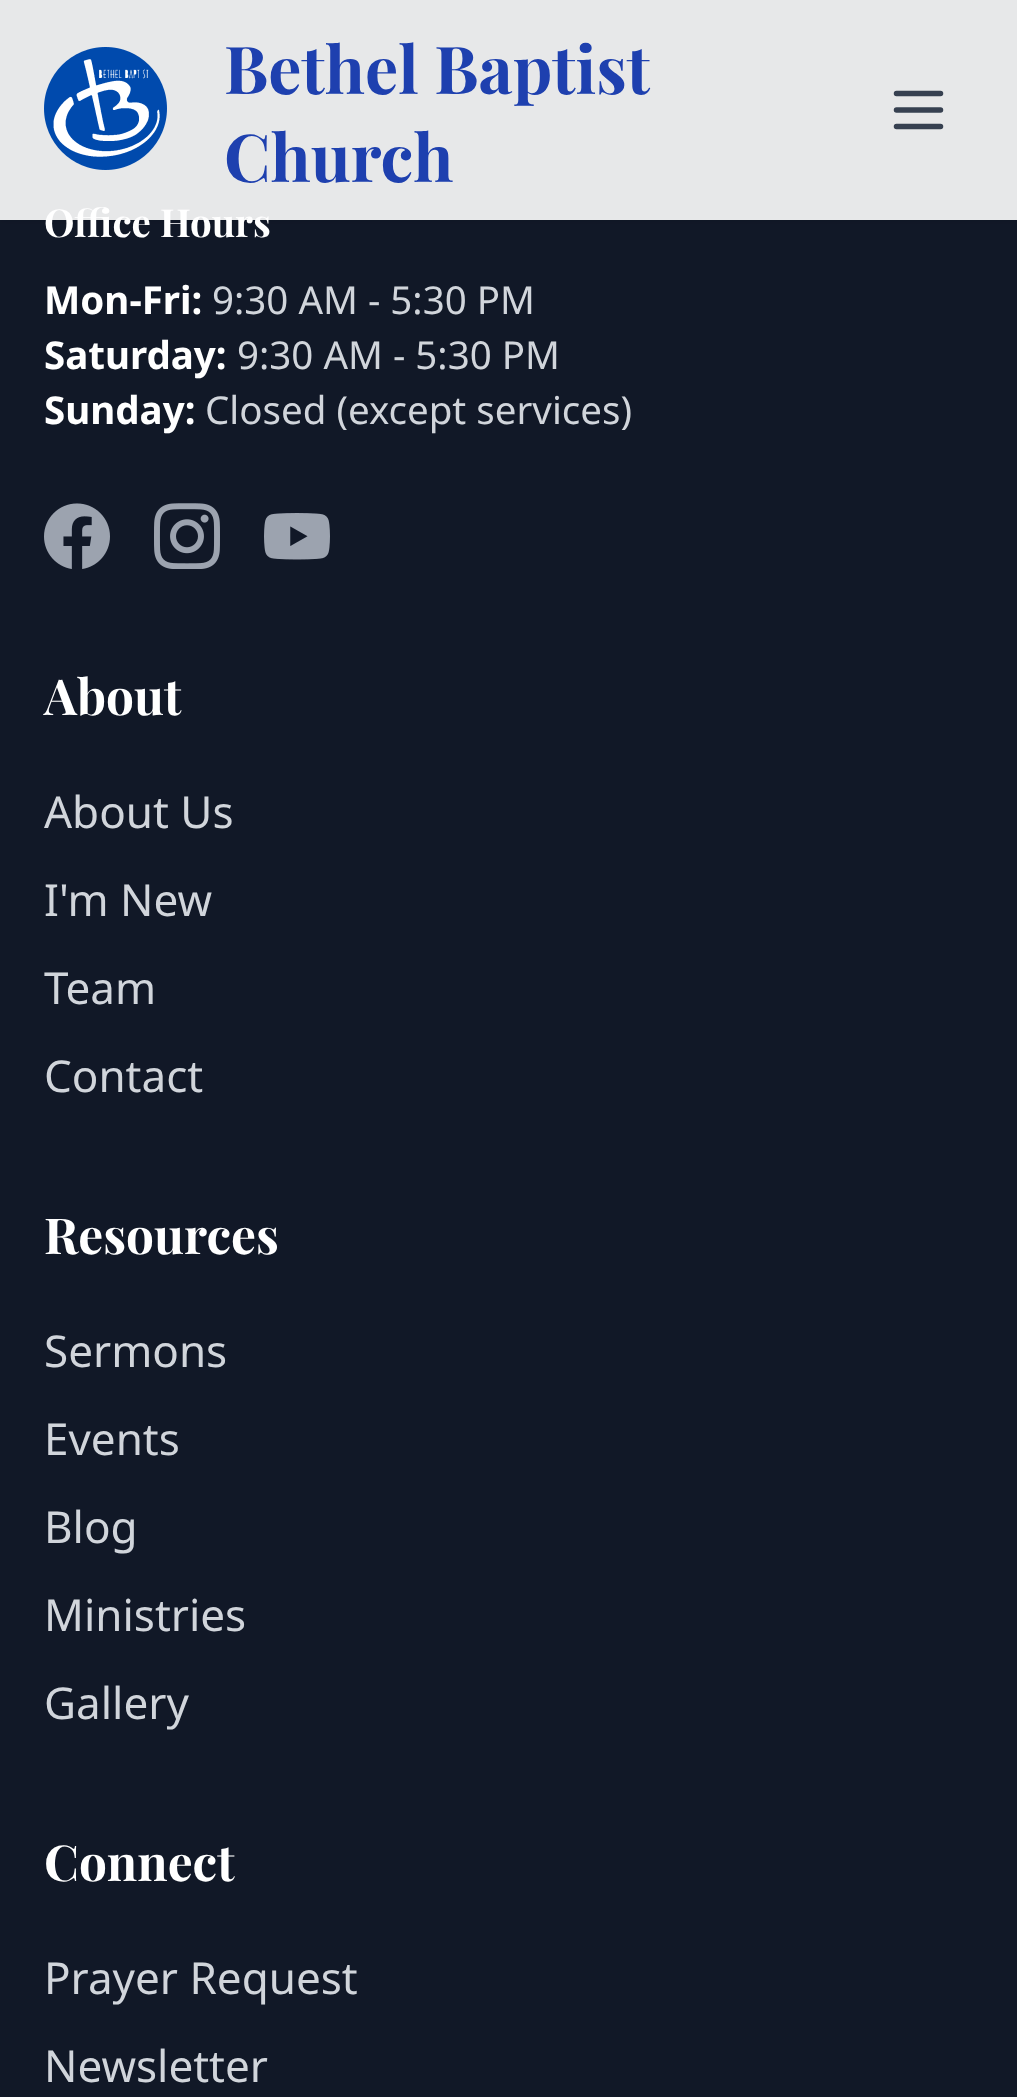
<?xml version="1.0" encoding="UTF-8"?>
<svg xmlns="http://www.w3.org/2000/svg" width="1017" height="2097">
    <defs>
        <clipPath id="clip1"><rect x="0" y="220" width="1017" height="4"/></clipPath>
        <filter id="blur1" x="-50%" y="-200%" width="200%" height="500%"><feGaussianBlur stdDeviation="3"/></filter>
    </defs>
    <rect width="100%" height="100%" fill="#111827"/>
    <g clip-path="url(#clip1)">
        <rect x="0" y="3" width="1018" height="220" fill="#000000" fill-opacity="0.05" filter="url(#blur1)"/>
    </g>
    <text x="44" y="237" font-family="Playfair Display" font-size="38.5" font-weight="700" fill="#FFFFFF">Office Hours</text>
    <rect x="0" y="0" width="1017" height="220" fill="#FFFFFF" fill-opacity="0.9"/>
    <image x="44" y="47" width="123" height="123" href="img_01.png"/>
    <text font-family="Playfair Display" font-size="66" font-weight="700" fill="#1E40AF">
        <tspan x="224" y="94">Bethel Baptist</tspan>
        <tspan x="224" y="182">Church</tspan>
    </text>
    <path d="M 896.5 93.5 H 940.5 M 896.5 110 H 940.5 M 896.5 126.5 H 940.5" fill="none" stroke="#374151" stroke-width="5.5" stroke-linecap="round" stroke-linejoin="round"/>
    <text x="44" y="314" font-family="Noto Sans" font-size="38.5" font-weight="700" fill="#FFFFFF">Mon-Fri:</text>
    <text x="212" y="314" font-family="Noto Sans" font-size="38.5" fill="#D1D5DB">9:30 AM - 5:30 PM</text>
    <text x="44" y="369" font-family="Noto Sans" font-size="38.5" font-weight="700" fill="#FFFFFF">Saturday:</text>
    <text x="237" y="369" font-family="Noto Sans" font-size="38.5" fill="#D1D5DB">9:30 AM - 5:30 PM</text>
    <text x="44" y="424" font-family="Noto Sans" font-size="38.5" font-weight="700" fill="#FFFFFF">Sunday:</text>
    <text x="205" y="424" font-family="Noto Sans" font-size="38.5" fill="#D1D5DB">Closed (except services)</text>
    <image x="44" y="503" width="66" height="66" href="img_02.png"/>
    <image x="154" y="503" width="66" height="66" href="img_03.png"/>
    <image x="264" y="513" width="66" height="47" href="img_04.png"/>
    <text x="44" y="715" font-family="Playfair Display" font-size="49.5" font-weight="700" fill="#FFFFFF">About</text>
    <text x="44" y="828" font-family="Noto Sans" font-size="44" fill="#D1D5DB">About Us</text>
    <text x="44" y="916" font-family="Noto Sans" font-size="44" fill="#D1D5DB">I'm New</text>
    <text x="44" y="1004" font-family="Noto Sans" font-size="44" fill="#D1D5DB">Team</text>
    <text x="44" y="1092" font-family="Noto Sans" font-size="44" fill="#D1D5DB">Contact</text>
    <text x="44" y="1254" font-family="Playfair Display" font-size="49.5" font-weight="700" fill="#FFFFFF">Resources</text>
    <text x="44" y="1367" font-family="Noto Sans" font-size="44" fill="#D1D5DB">Sermons</text>
    <text x="44" y="1455" font-family="Noto Sans" font-size="44" fill="#D1D5DB">Events</text>
    <text x="44" y="1543" font-family="Noto Sans" font-size="44" fill="#D1D5DB">Blog</text>
    <text x="44" y="1631" font-family="Noto Sans" font-size="44" fill="#D1D5DB">Ministries</text>
    <text x="44" y="1719" font-family="Noto Sans" font-size="44" fill="#D1D5DB">Gallery</text>
    <text x="44" y="1881" font-family="Playfair Display" font-size="49.5" font-weight="700" fill="#FFFFFF">Connect</text>
    <text x="44" y="1994" font-family="Noto Sans" font-size="44" fill="#D1D5DB">Prayer Request</text>
    <text x="44" y="2082" font-family="Noto Sans" font-size="44" fill="#D1D5DB">Newsletter</text>
</svg>
